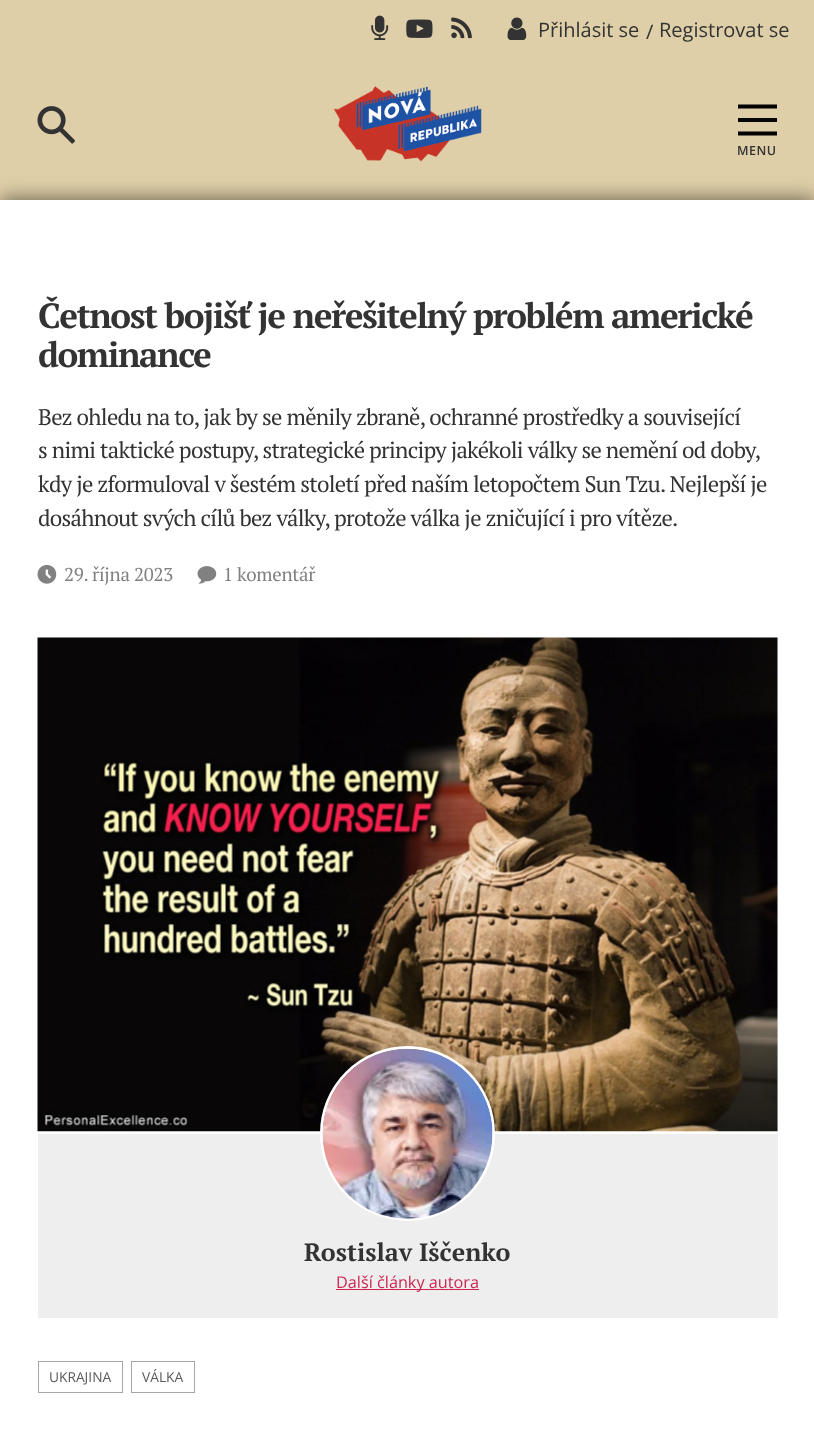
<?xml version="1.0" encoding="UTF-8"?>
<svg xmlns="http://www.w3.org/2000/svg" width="814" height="1436">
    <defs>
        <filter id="blur1" x="-50%" y="-200%" width="200%" height="500%"><feGaussianBlur stdDeviation="10.5"/></filter>
    </defs>
    <rect width="100%" height="100%" fill="#DFCFA8"/>
    <image x="371" y="15" width="18" height="25" href="img_01.png"/>
    <image x="406" y="19" width="27" height="19" href="img_02.png"/>
    <image x="451" y="17" width="21" height="22" href="img_03.png"/>
    <image x="507" y="17" width="20" height="23" href="img_04.png"/>
    <text x="538" y="37" font-family="Open Sans" font-size="20" fill="#333333">Přihlásit se</text>
    <text x="646" y="39" font-family="Open Sans" font-size="20" fill="#333333">/</text>
    <text x="659" y="37" font-family="Open Sans" font-size="20" fill="#333333">Registrovat se</text>
    <image x="37" y="106" width="38" height="38" href="img_05.png"/>
    <image x="333" y="86" width="149" height="76" href="img_06.png"/>
    <path d="M 738 106.5 H 777" fill="none" stroke="#000000" stroke-width="3.9"/>
    <rect x="738" y="118" width="39" height="4" fill="#060504"/>
    <path d="M 738 133.5 H 777" fill="none" stroke="#000000" stroke-width="3.9"/>
    <text x="737" y="155" font-family="Open Sans" font-size="12.5" font-weight="600" letter-spacing="0.5" fill="#333333">MENU</text>
    <rect x="0" y="200" width="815" height="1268" fill="#000000" fill-opacity="0.6" filter="url(#blur1)"/>
    <rect x="0" y="200" width="814" height="1236" fill="#FFFFFF"/>
    <text font-family="PT Serif" font-size="35" font-weight="700" letter-spacing="-1.45" fill="#333333">
        <tspan x="38" y="328">Četnost bojišť je neřešitelný problém americké</tspan>
        <tspan x="38" y="367">dominance</tspan>
    </text>
    <text font-family="PT Serif" font-size="22.5" letter-spacing="-0.7" fill="#333333">
        <tspan x="38" y="425">Bez ohledu na to, jak by se měnily zbraně, ochranné prostředky a související</tspan>
        <tspan x="38" y="458">s nimi taktické postupy, strategické principy jakékoli války se nemění od doby,</tspan>
        <tspan x="38" y="492">kdy je zformuloval v šestém století před naším letopočtem Sun Tzu. Nejlepší je</tspan>
        <tspan x="38" y="526">dosáhnout svých cílů bez války, protože válka je zničující i pro vítěze.</tspan>
    </text>
    <image x="37" y="564" width="20" height="20" href="img_07.png"/>
    <text x="64" y="581" font-family="PT Serif" font-size="18.75" letter-spacing="-0.25" fill="#818181">29. října 2023</text>
    <image x="197" y="566" width="20" height="18" href="img_08.png"/>
    <text x="223" y="581" font-family="PT Serif" font-size="18.75" letter-spacing="-0.25" fill="#818181">1 komentář</text>
    <rect x="38" y="1021" width="740" height="297" fill="#EEEEEE"/>
    <rect x="38" y="1131" width="740" height="3" fill="#FFFFFF"/>
    <image x="37" y="637" width="741" height="495" href="img_09.png"/>
    <circle cx="407.5" cy="1133.5" r="86" fill="none" stroke="#FFFFFF" stroke-width="3"/>
    <image x="322" y="1048" width="171" height="171" href="img_10.png"/>
    <text x="304" y="1261" font-family="PT Serif" font-size="25" font-weight="700" fill="#333333">Rostislav Iščenko</text>
    <rect x="336" y="1289" width="143" height="1" fill="#CD2653"/>
    <text x="336" y="1288" font-family="Open Sans" font-size="16.25" fill="#CD2653">Další články autora</text>
    <rect x="38.5" y="1361.5" width="84" height="31" fill="none" stroke="#A7A7A7"/>
    <text x="49" y="1382" font-family="Open Sans" font-size="13.75" fill="#595959">UKRAJINA</text>
    <rect x="131.5" y="1361.5" width="63" height="31" fill="none" stroke="#A7A7A7"/>
    <text x="142" y="1382" font-family="Open Sans" font-size="13.75" fill="#595959">VÁLKA</text>
</svg>
